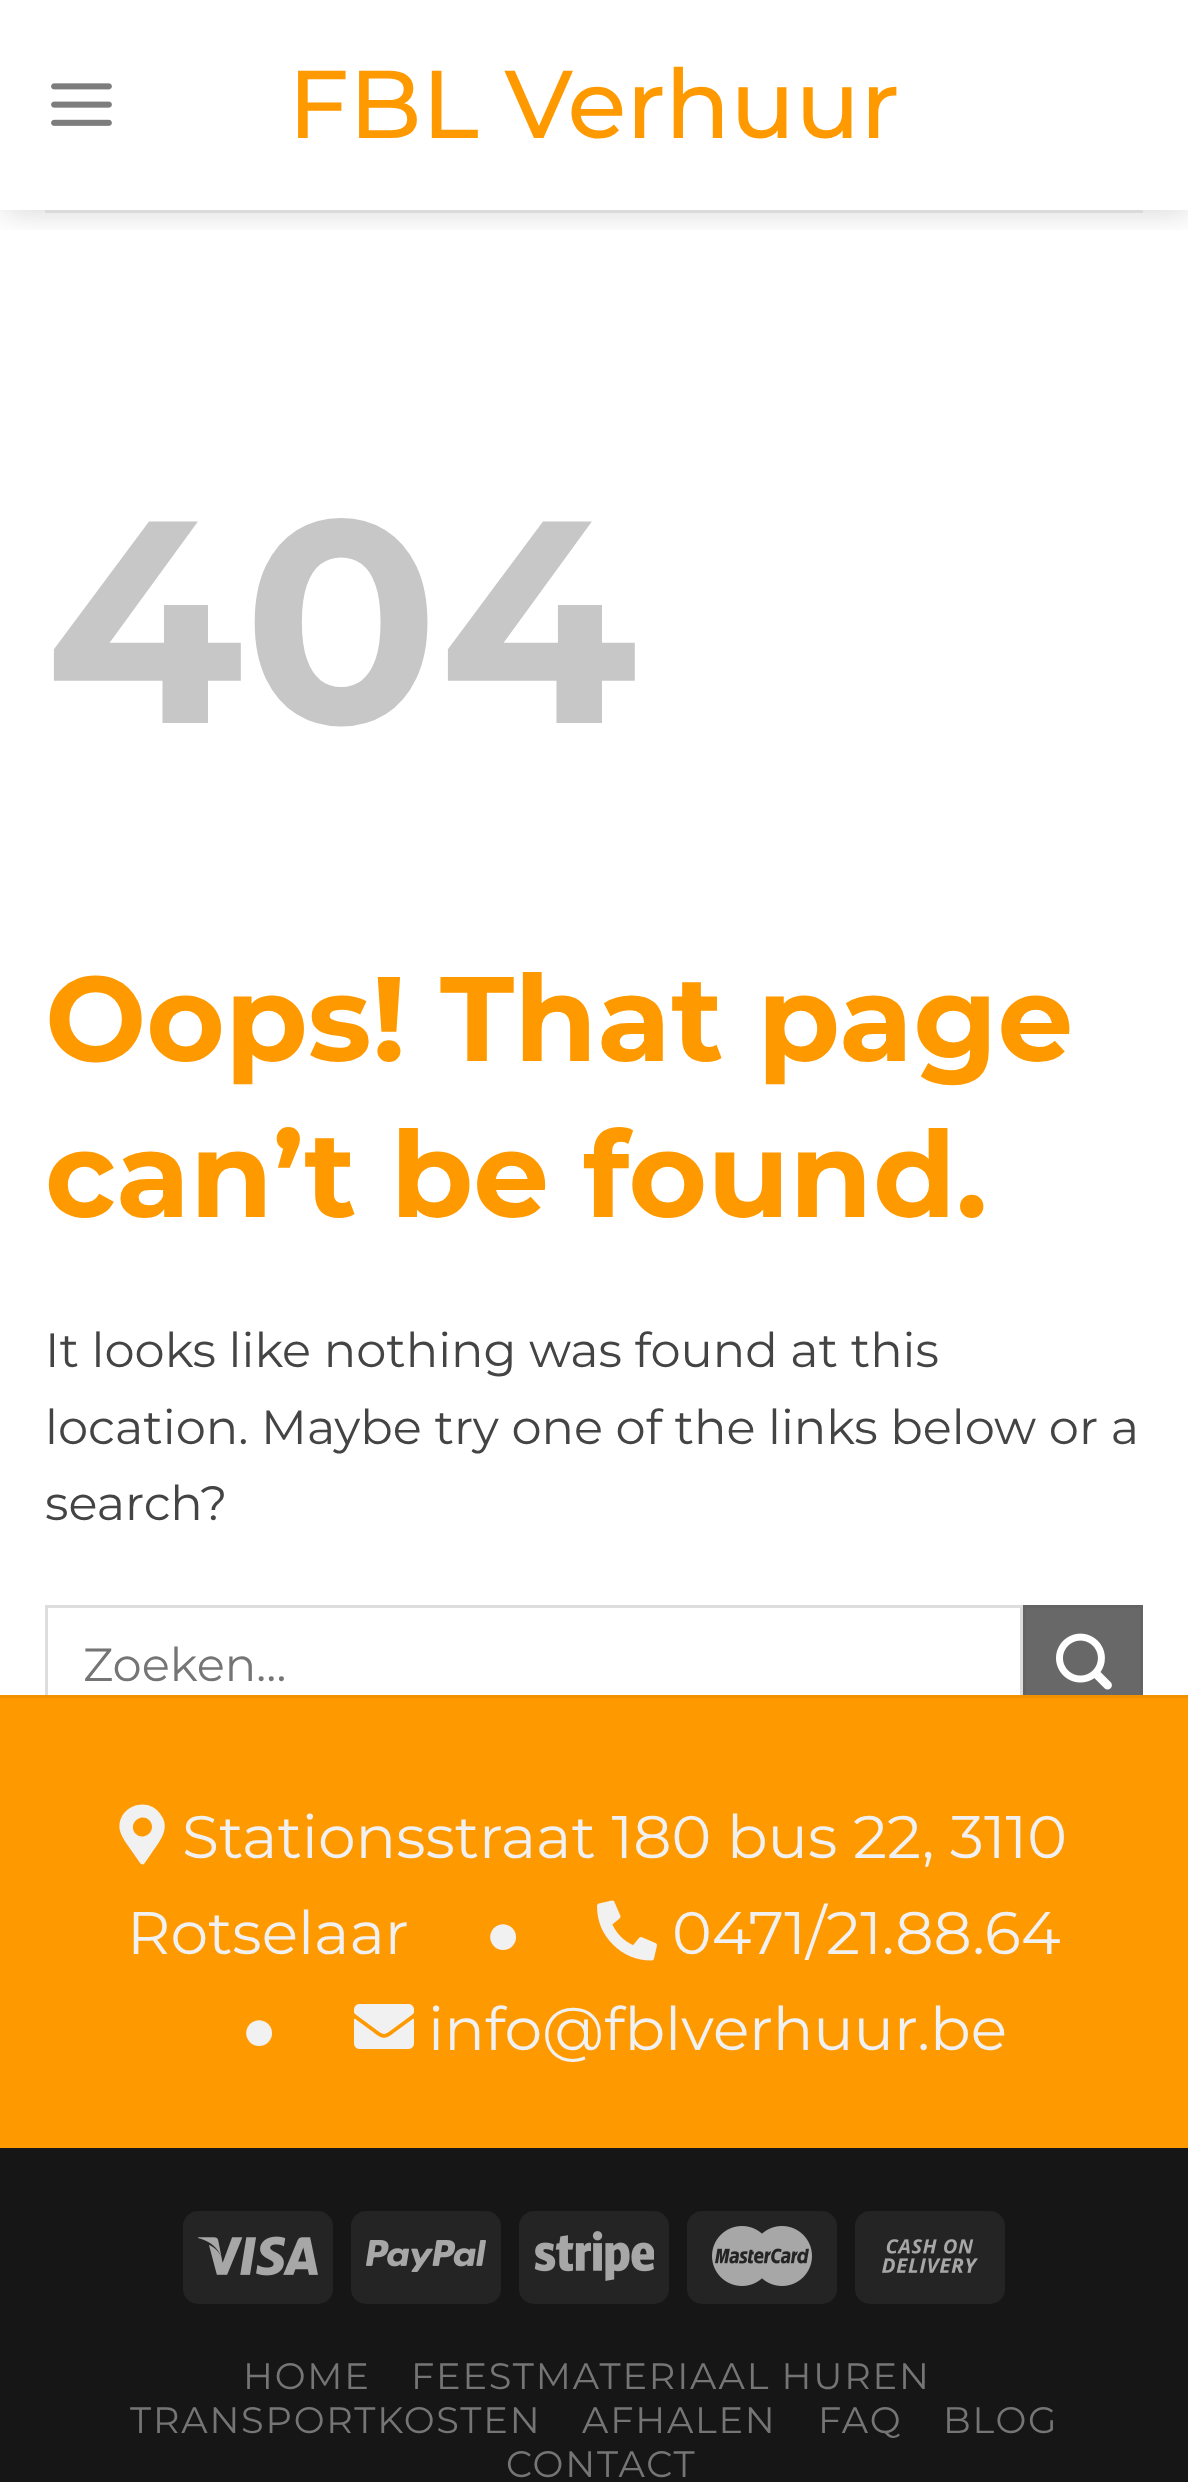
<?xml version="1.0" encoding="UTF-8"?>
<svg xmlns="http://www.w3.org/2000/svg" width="1188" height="2482">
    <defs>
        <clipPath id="clip1"><rect x="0" y="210" width="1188" height="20"/></clipPath>
        <filter id="blur1" x="-50%" y="-200%" width="200%" height="500%"><feGaussianBlur stdDeviation="15"/></filter>
    </defs>
    <rect width="100%" height="100%" fill="#FFFFFF"/>
    <g clip-path="url(#clip1)">
        <rect x="3" y="3" width="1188" height="210" fill="#000000" fill-opacity="0.15" filter="url(#blur1)"/>
    </g>
    <image x="51" y="83" width="61" height="43" href="img_01.png"/>
    <text x="288" y="138" font-family="Montserrat" font-size="96" font-weight="500" fill="#FF9900">FBL Verhuur</text>
    <rect x="45" y="210" width="1098" height="3" fill="#DADADA"/>
    <text x="45" y="723" font-family="Montserrat" font-size="288" font-weight="700" fill="#C7C7C7">404</text>
    <text font-family="Montserrat" font-size="120" font-weight="700" fill="#FF9900">
        <tspan x="45" y="1061">Oops! That page</tspan>
        <tspan x="45" y="1217">can’t be found.</tspan>
    </text>
    <text font-family="Montserrat" font-size="48" fill="#444444">
        <tspan x="45" y="1367">It looks like nothing was found at this</tspan>
        <tspan x="45" y="1444">location. Maybe try one of the links below or a</tspan>
        <tspan x="45" y="1520">search?</tspan>
    </text>
    <rect x="46.5" y="1606.5" width="975" height="114" fill="none" stroke="#DDDDDD" stroke-width="3"/>
    <text x="83" y="1681" font-family="Montserrat" font-size="46.5" fill="#757575">Zoeken…</text>
    <rect x="1026" y="1608" width="114" height="87" fill="#686868"/>
    <rect x="1024.5" y="1606.5" width="117" height="114" fill="none" stroke="#636363" stroke-width="3"/>
    <image x="1056" y="1633" width="56" height="57" href="img_02.png"/>
    <rect x="0" y="1698" width="1188" height="450" fill="#FF9900"/>
    <rect x="0" y="1695" width="1188" height="3" fill="#F29100"/>
    <path d="M 140 1863 L 131 1850 C 127 1844 122 1838 120 1831 C 115 1807 148 1794 161 1815 C 171 1829 159 1842 151 1854 L 144 1864 C 143 1865 141 1864 140 1863 Z M 136 1834 C 145 1842 158 1829 149 1820 C 140 1812 127 1825 136 1834 Z" fill="#F1F1F1"/>
    <text x="182" y="1858" font-family="Montserrat" font-size="60" fill="#F1F1F1">Stationsstraat 180 bus 22, 3110</text>
    <text x="127" y="1954" font-family="Montserrat" font-size="60" fill="#F1F1F1">Rotselaar</text>
    <text x="485" y="1954" font-family="Liberation Sans" font-size="60" fill="#F1F1F1">●</text>
    <image x="597" y="1900" width="60" height="61" href="img_03.png"/>
    <text x="672" y="1954" font-family="Montserrat" font-size="60" fill="#F1F1F1">0471/21.88.64</text>
    <text x="241" y="2050" font-family="Liberation Sans" font-size="60" fill="#F1F1F1">●</text>
    <image x="354" y="2004" width="60" height="45" href="img_04.png"/>
    <text x="428" y="2050" font-family="Montserrat" font-size="60" fill="#F1F1F1">info@fblverhuur.be</text>
    <rect x="0" y="2148" width="1188" height="334" fill="#161616"/>
    <rect x="183" y="2211" width="150" height="93" rx="15" fill="#242424"/>
    <image x="198" y="2236" width="120" height="40" href="img_05.png"/>
    <rect x="351" y="2211" width="150" height="93" rx="15" fill="#242424"/>
    <image x="366" y="2240" width="120" height="32" href="img_06.png"/>
    <rect x="519" y="2211" width="150" height="93" rx="15" fill="#242424"/>
    <image x="534" y="2231" width="120" height="50" href="img_07.png"/>
    <rect x="687" y="2211" width="150" height="93" rx="15" fill="#242424"/>
    <image x="712" y="2226" width="100" height="60" href="img_08.png"/>
    <rect x="855" y="2211" width="150" height="93" rx="15" fill="#242424"/>
    <image x="882" y="2239" width="96" height="34" href="img_09.png"/>
    <text x="243" y="2389" font-family="Montserrat" font-size="36.75" letter-spacing="1.8" fill="#757575">HOME</text>
    <text x="411" y="2389" font-family="Montserrat" font-size="36.75" letter-spacing="1.8" fill="#757575">FEESTMATERIAAL HUREN</text>
    <text x="130" y="2433" font-family="Montserrat" font-size="36.75" letter-spacing="1.8" fill="#757575">TRANSPORTKOSTEN</text>
    <text x="582" y="2433" font-family="Montserrat" font-size="36.75" letter-spacing="1.8" fill="#757575">AFHALEN</text>
    <text x="818" y="2433" font-family="Montserrat" font-size="36.75" letter-spacing="1.8" fill="#757575">FAQ</text>
    <text x="943" y="2433" font-family="Montserrat" font-size="36.75" letter-spacing="1.8" fill="#757575">BLOG</text>
    <text x="506" y="2477" font-family="Montserrat" font-size="36.75" letter-spacing="1.8" fill="#757575">CONTACT</text>
</svg>
